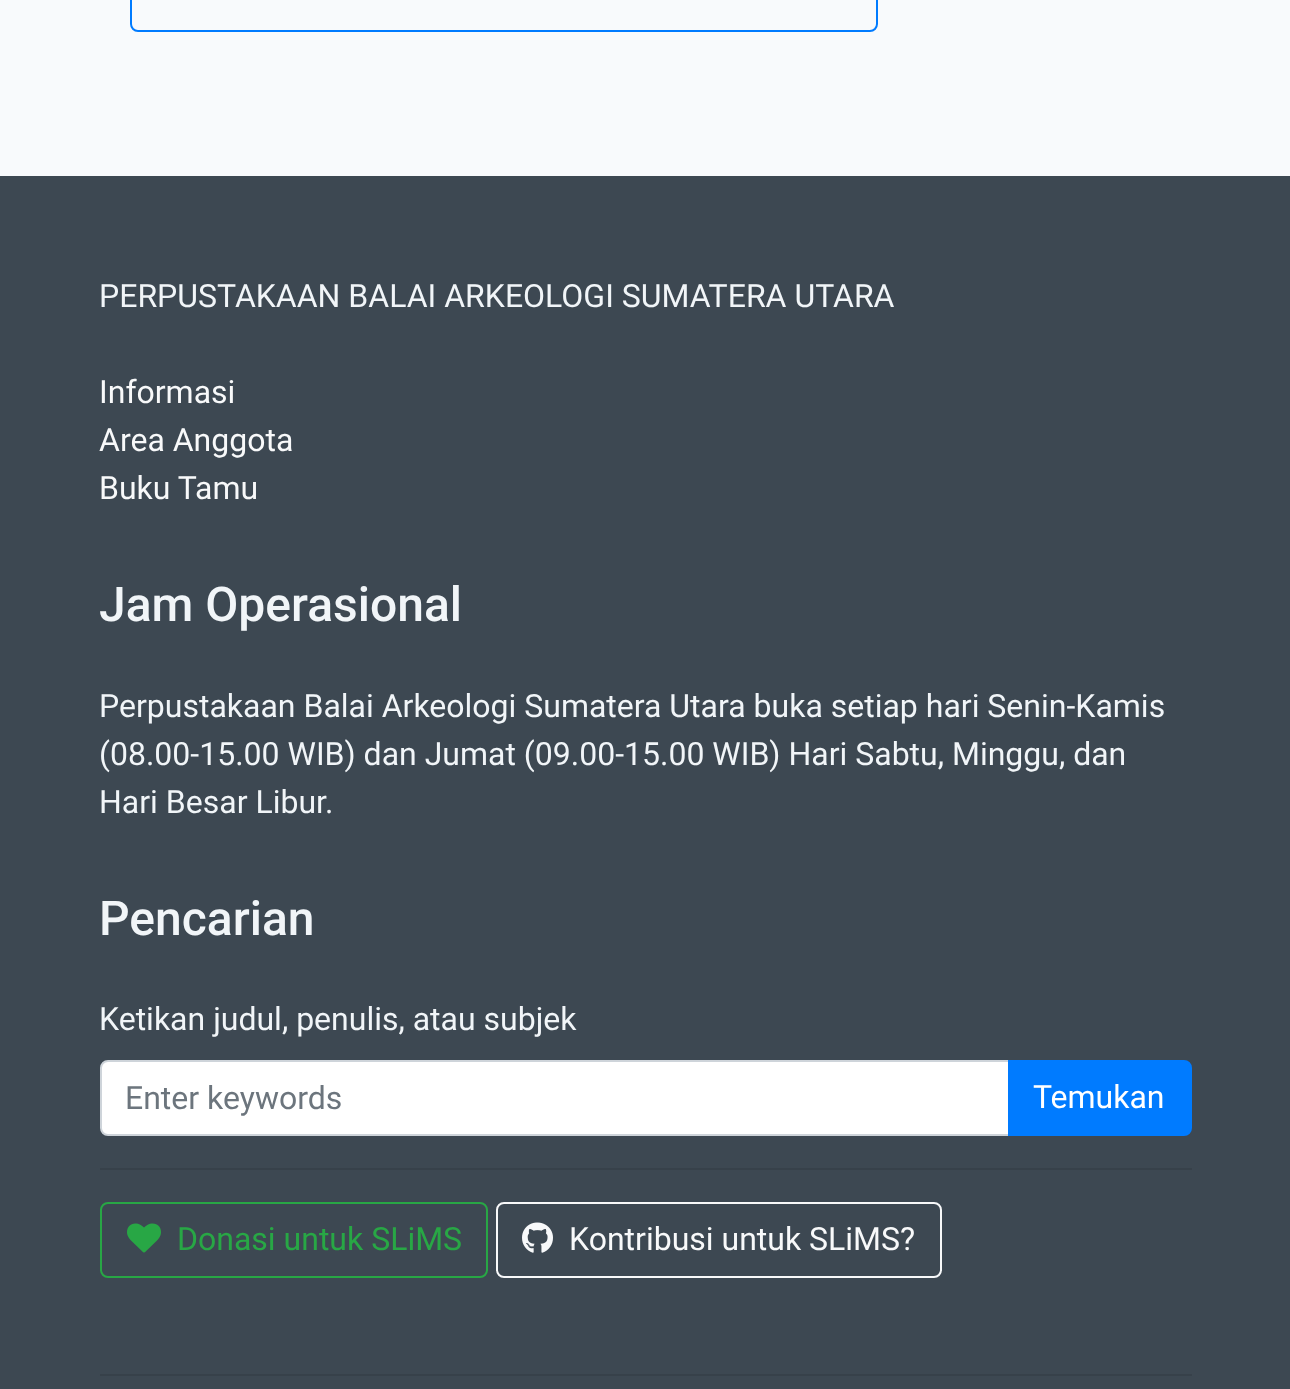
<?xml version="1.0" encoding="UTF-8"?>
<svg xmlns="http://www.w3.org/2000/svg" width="1290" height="1389">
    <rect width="100%" height="100%" fill="#F8FAFC"/>
    <rect x="131" y="-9" width="746" height="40" rx="7" fill="none" stroke="#007BFF" stroke-width="2"/>
    <rect x="0" y="176" width="1290" height="1213" fill="#3D4852"/>
    <text x="99" y="307" font-family="Roboto" font-size="32" fill="#F1F5F8">PERPUSTAKAAN BALAI ARKEOLOGI SUMATERA UTARA</text>
    <text font-family="Roboto" font-size="32" fill="#F8F9FA">
        <tspan x="99" y="403">Informasi</tspan>
        <tspan x="99" y="451">Area Anggota</tspan>
        <tspan x="99" y="499">Buku Tamu</tspan>
    </text>
    <text x="99" y="621" font-family="Roboto" font-size="48" font-weight="500" fill="#F1F5F8">Jam Operasional</text>
    <text font-family="Roboto" font-size="32" fill="#F1F5F8">
        <tspan x="99" y="717">Perpustakaan Balai Arkeologi Sumatera Utara buka setiap hari Senin-Kamis</tspan>
        <tspan x="99" y="765">(08.00-15.00 WIB) dan Jumat (09.00-15.00 WIB) Hari Sabtu, Minggu, dan</tspan>
        <tspan x="99" y="813">Hari Besar Libur.</tspan>
    </text>
    <text x="99" y="935" font-family="Roboto" font-size="48" font-weight="500" fill="#F1F5F8">Pencarian</text>
    <text x="99" y="1030" font-family="Roboto" font-size="32" fill="#F1F5F8">Ketikan judul, penulis, atau subjek</text>
    <path d="M 108 1061 H 1009 V 1135 H 108 C 104 1135 101 1132 101 1128 V 1068 C 101 1064 104 1061 108 1061 Z" fill="#FFFFFF" stroke="#CED4DA" stroke-width="2"/>
    <text x="125" y="1109" font-family="Roboto" font-size="32" fill="#6C757D">Enter keywords</text>
    <path d="M 1009 1061 H 1184 C 1188 1061 1191 1064 1191 1068 V 1128 C 1191 1132 1188 1135 1184 1135 H 1009 Z" fill="#007BFF" stroke="#007BFF" stroke-width="2"/>
    <text x="1033" y="1108" font-family="Roboto" font-size="32" fill="#FFFFFF">Temukan</text>
    <rect x="100" y="1168" width="1092" height="2" fill="#37414A"/>
    <rect x="101" y="1203" width="386" height="74" rx="7" fill="none" stroke="#28A745" stroke-width="2"/>
    <image x="127" y="1223" width="34" height="30" href="img_01.png"/>
    <text x="177" y="1250" font-family="Roboto" font-size="32" fill="#28A745">Donasi untuk SLiMS</text>
    <rect x="497" y="1203" width="444" height="74" rx="7" fill="none" stroke="#F8F9FA" stroke-width="2"/>
    <image x="522" y="1222" width="31" height="31" href="img_02.png"/>
    <text x="569" y="1250" font-family="Roboto" font-size="32" fill="#F8F9FA">Kontribusi untuk SLiMS?</text>
    <rect x="100" y="1374" width="1092" height="2" fill="#37414A"/>
</svg>
